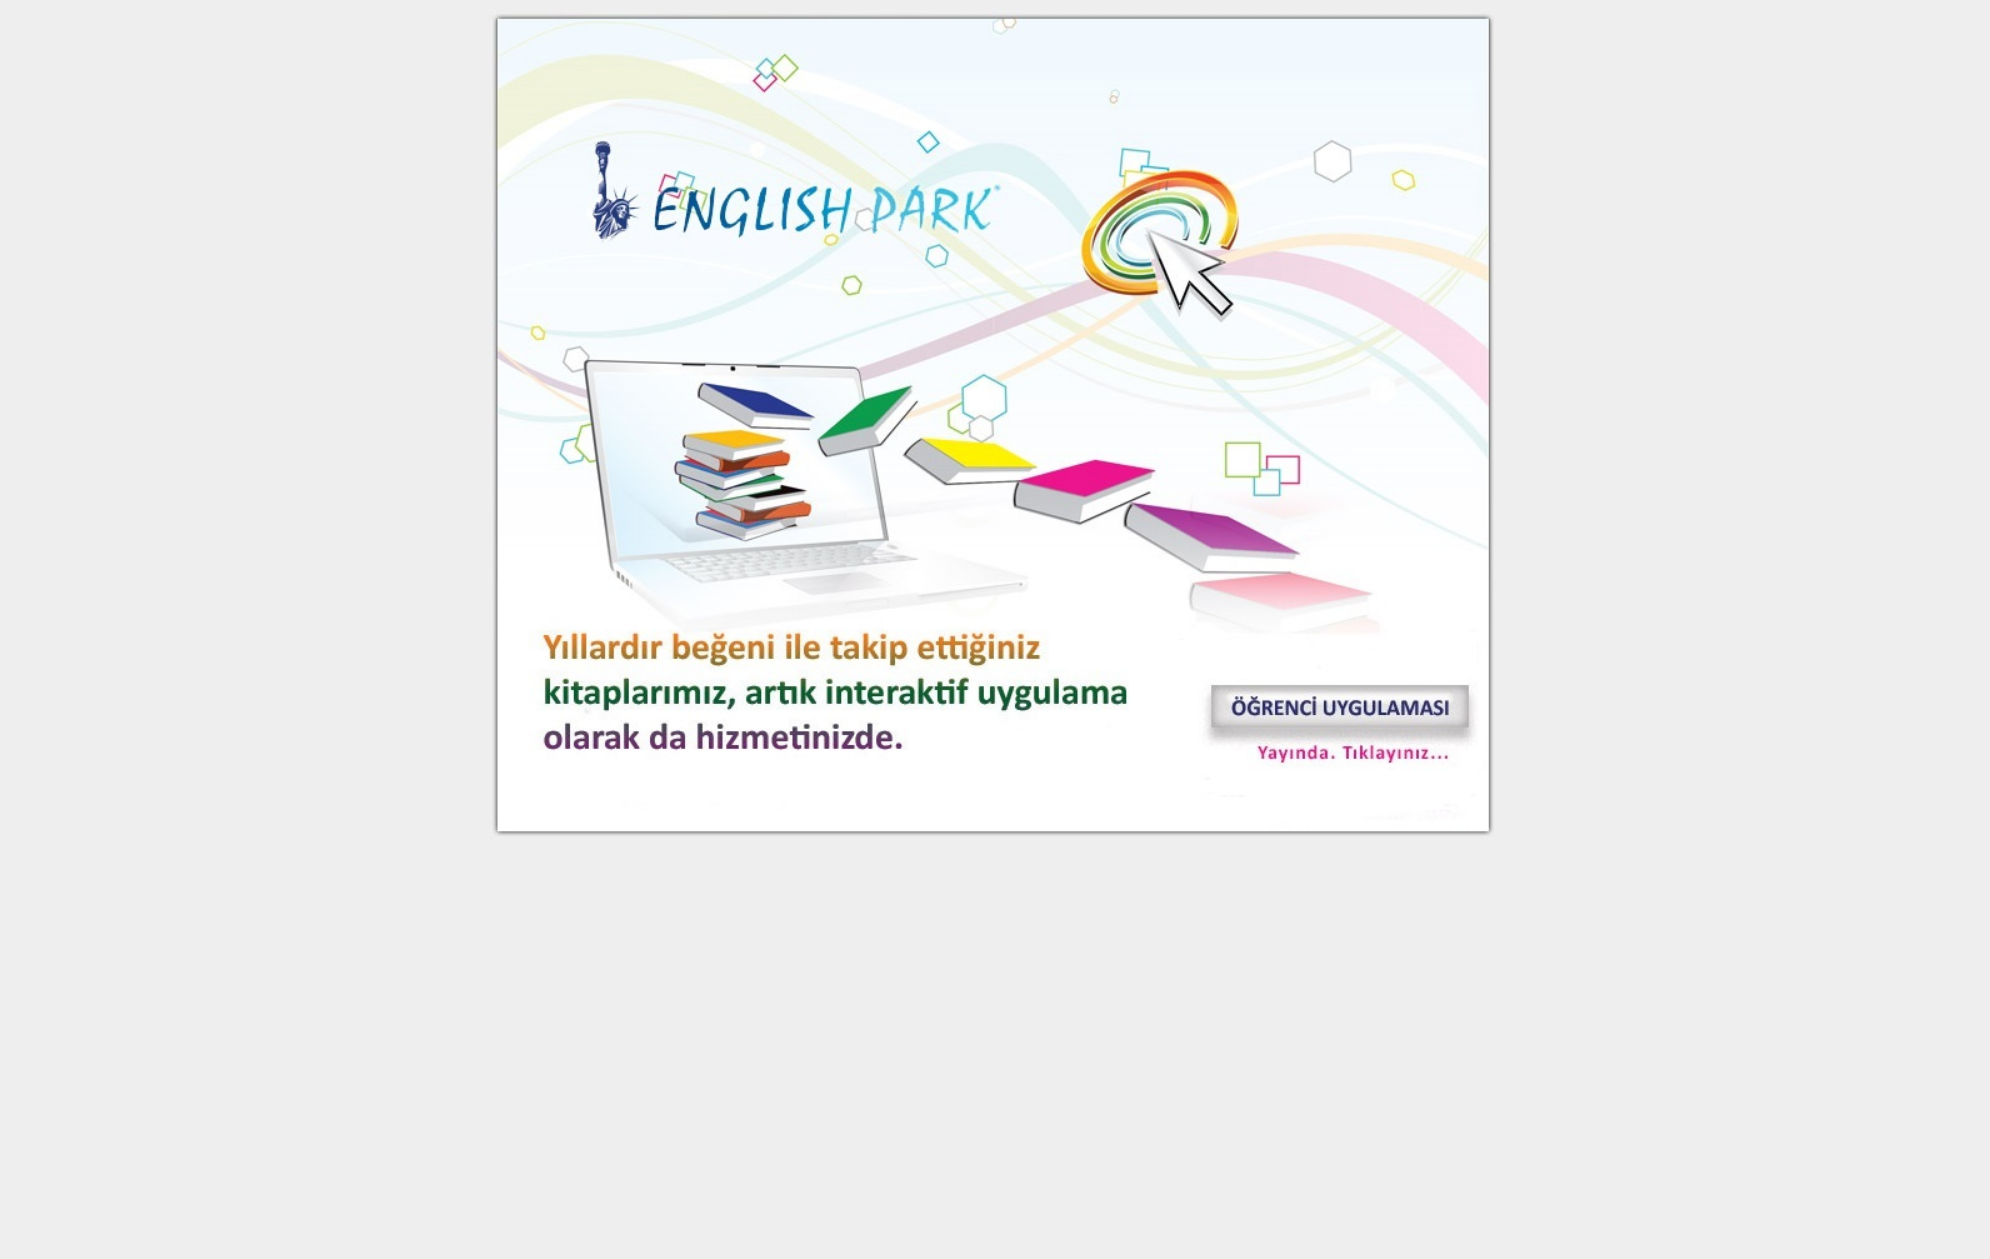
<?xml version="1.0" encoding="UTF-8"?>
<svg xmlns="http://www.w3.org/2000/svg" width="1990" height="1259">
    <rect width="100%" height="100%" fill="#EEEEEE"/>
    <image x="489" y="10" width="1005" height="829" href="img_01.png"/>
</svg>
